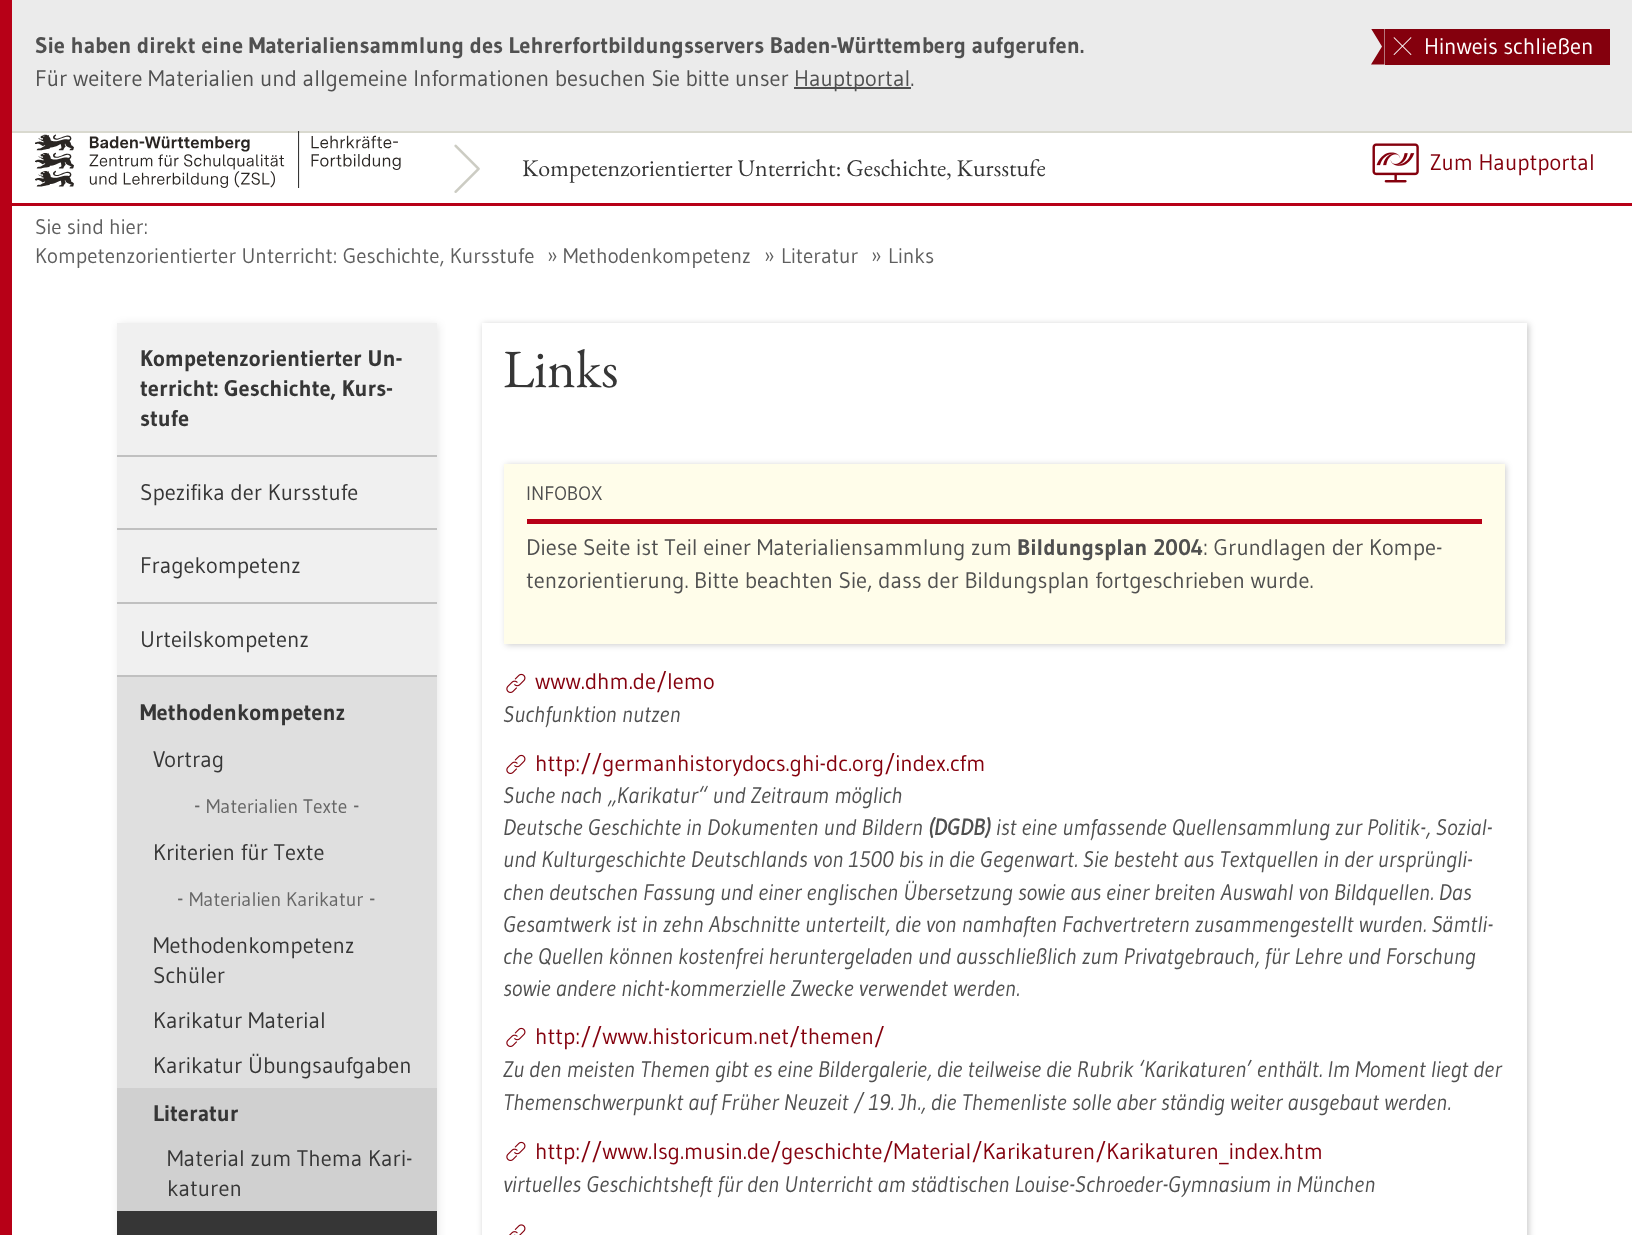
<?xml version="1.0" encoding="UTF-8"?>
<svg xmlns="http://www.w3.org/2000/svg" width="1632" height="1235">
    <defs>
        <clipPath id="clip1"><rect x="1371" y="29" width="14" height="36"/></clipPath>
        <filter id="blur1" x="-50%" y="-200%" width="200%" height="500%"><feGaussianBlur stdDeviation="4"/></filter>
        <clipPath id="clip2"><path d="M 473 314 H 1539 V 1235 H 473 Z M 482 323 H 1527 V 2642 H 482 Z" clip-rule="evenodd"/></clipPath>
        <filter id="blur2" x="-50%" y="-200%" width="200%" height="500%"><feGaussianBlur stdDeviation="3"/></filter>
    </defs>
    <rect width="100%" height="100%" fill="#FFFFFF"/>
    <rect x="0" y="0" width="12" height="1235" fill="#B70017"/>
    <rect x="12" y="0" width="1620" height="131" fill="#EBEBEB"/>
    <rect x="12" y="131" width="1620" height="2" fill="#D9D9CF"/>
    <text x="35" y="53" font-family="Gudea" font-size="22.5" font-weight="700" fill="#505050">Sie haben direkt eine Materialiensammlung des Lehrerfortbildungsservers Baden-Württemberg aufgerufen.</text>
    <text x="35" y="86" font-family="Gudea" font-size="22.5" fill="#505050">Für weitere Materialien und allgemeine Informationen besuchen Sie bitte unser</text>
    <rect x="794" y="87" width="117" height="2" fill="#505050"/>
    <text x="794" y="86" font-family="Gudea" font-size="22.5" fill="#505050">Hauptportal.</text>
    <rect x="1385" y="29" width="225" height="36" fill="#84000D"/>
    <g clip-path="url(#clip1)">
        <path d="M 1371 28.5 L 1382 46.5 L 1371 64.5 H 1384.5 V 28.5 Z" fill="#84000D"/>
    </g>
    <image x="1393" y="37" width="19" height="18" href="img_01.png"/>
    <text x="1424" y="54" font-family="Gudea" font-size="22.5" fill="#FFFFFF">Hinweis schließen</text>
    <rect x="12" y="203" width="1620" height="3" fill="#B70017"/>
    <image x="35" y="131" width="366" height="57" href="img_02.png"/>
    <image x="454" y="144" width="26" height="49" href="img_03.png"/>
    <text x="522" y="176" font-family="EB Garamond" font-size="24" fill="#363636">Kompetenzorientierter Unterricht: Geschichte, Kursstufe</text>
    <image x="1372" y="143" width="47" height="40" href="img_04.png"/>
    <text x="1430" y="170" font-family="Gudea" font-size="22.5" fill="#84000D">Zum Hauptportal</text>
    <text font-family="Gudea" font-size="21" fill="#5F5F5F">
        <tspan x="35" y="234">Sie sind hier:</tspan>
        <tspan x="35" y="263">Kompetenzorientierter Unterricht: Geschichte, Kursstufe</tspan>
    </text>
    <text x="547" y="263" font-family="Gudea" font-size="21" fill="#5F5F5F">»</text>
    <text x="563" y="263" font-family="Gudea" font-size="21" fill="#5F5F5F">Methodenkompetenz</text>
    <text x="764" y="263" font-family="Gudea" font-size="21" fill="#5F5F5F">»</text>
    <text x="781" y="263" font-family="Gudea" font-size="21" fill="#5F5F5F">Literatur</text>
    <text x="871" y="263" font-family="Gudea" font-size="21" fill="#5F5F5F">»</text>
    <text x="888" y="263" font-family="Gudea" font-size="21" fill="#5F5F5F">Links</text>
    <rect x="119" y="324" width="319" height="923" fill="#000000" fill-opacity="0.1" filter="url(#blur1)"/>
    <rect x="117" y="323" width="320" height="352" fill="#F0F0F0"/>
    <rect x="117" y="455" width="320" height="2" fill="#C0C0C0"/>
    <text font-family="Gudea" font-size="22.5" font-weight="700" fill="#363636">
        <tspan x="140" y="366">Kompetenzorientierter Un-</tspan>
        <tspan x="140" y="396">terricht: Geschichte, Kurs-</tspan>
        <tspan x="140" y="426">stufe</tspan>
    </text>
    <rect x="117" y="528" width="320" height="2" fill="#C0C0C0"/>
    <text x="140" y="500" font-family="Gudea" font-size="22.5" fill="#363636">Spezifika der Kursstufe</text>
    <rect x="117" y="602" width="320" height="2" fill="#C0C0C0"/>
    <text x="140" y="573" font-family="Gudea" font-size="22.5" fill="#363636">Fragekompetenz</text>
    <rect x="117" y="675" width="320" height="2" fill="#C0C0C0"/>
    <text x="140" y="647" font-family="Gudea" font-size="22.5" fill="#363636">Urteilskompetenz</text>
    <rect x="117" y="677" width="320" height="411" fill="#DFDFDF"/>
    <text x="140" y="720" font-family="Gudea" font-size="22.5" font-weight="700" fill="#363636">Methodenkompetenz</text>
    <text x="153" y="767" font-family="Gudea" font-size="22.5" fill="#363636">Vortrag</text>
    <text x="194" y="813" font-family="Gudea" font-size="22.5" fill="#666666">-</text>
    <text x="206" y="813" font-family="Gudea" font-size="19.5" fill="#666666">Materialien Texte</text>
    <text x="353" y="813" font-family="Gudea" font-size="22.5" fill="#666666">-</text>
    <text x="153" y="860" font-family="Gudea" font-size="22.5" fill="#363636">Kriterien für Texte</text>
    <text x="177" y="906" font-family="Gudea" font-size="22.5" fill="#666666">-</text>
    <text x="189" y="906" font-family="Gudea" font-size="19.5" fill="#666666">Materialien Karikatur</text>
    <text x="369" y="906" font-family="Gudea" font-size="22.5" fill="#666666">-</text>
    <text font-family="Gudea" font-size="22.5" fill="#363636">
        <tspan x="153" y="953">Methodenkompetenz</tspan>
        <tspan x="153" y="983">Schüler</tspan>
    </text>
    <text x="153" y="1028" font-family="Gudea" font-size="22.5" fill="#363636">Karikatur Material</text>
    <text x="153" y="1073" font-family="Gudea" font-size="22.5" fill="#363636">Karikatur Übungsaufgaben</text>
    <rect x="117" y="1088" width="320" height="123" fill="#D0D0D0"/>
    <text x="153" y="1121" font-family="Gudea" font-size="22.5" font-weight="700" fill="#363636">Literatur</text>
    <text font-family="Gudea" font-size="22.5" fill="#363636">
        <tspan x="167" y="1166">Material zum Thema Kari-</tspan>
        <tspan x="167" y="1196">katuren</tspan>
    </text>
    <rect x="117" y="1211" width="320" height="24" fill="#363636"/>
    <g clip-path="url(#clip2)">
        <rect x="483" y="324" width="1046" height="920" fill="#000000" fill-opacity="0.2" filter="url(#blur2)"/>
    </g>
    <text x="503" y="387" font-family="EB Garamond" font-size="54" fill="#363636">Links</text>
    <rect x="506" y="465" width="1000" height="180" fill="#000000" fill-opacity="0.2" filter="url(#blur2)"/>
    <rect x="504" y="464" width="1001" height="180" fill="#FFFDEA"/>
    <rect x="527" y="519" width="955" height="5" fill="#B70017"/>
    <text x="526" y="500" font-family="Gudea" font-size="19.5" fill="#505050">INFOBOX</text>
    <text x="526" y="555" font-family="Gudea" font-size="22.5" fill="#505050">Diese Seite ist Teil einer Materialiensammlung zum</text>
    <text x="1017" y="555" font-family="Gudea" font-size="22.5" font-weight="700" fill="#505050">Bildungsplan 2004</text>
    <text x="1203" y="555" font-family="Gudea" font-size="22.5" fill="#505050">: Grundlagen der Kompe-</text>
    <text x="526" y="588" font-family="Gudea" font-size="22.5" fill="#505050">tenzorientierung. Bitte beachten Sie, dass der Bildungsplan fortgeschrieben wurde.</text>
    <image x="506" y="673" width="20" height="20" href="img_05.png"/>
    <text x="535" y="689" font-family="Gudea" font-size="22.5" fill="#84000D">www.dhm.de/lemo</text>
    <text x="503" y="722" font-family="Gudea" font-size="22.5" font-style="italic" fill="#505050">Suchfunktion nutzen</text>
    <image x="506" y="754" width="20" height="20" href="img_05.png"/>
    <text x="535" y="771" font-family="Gudea" font-size="22.5" fill="#84000D">http://germanhistorydocs.ghi-dc.org/index.cfm</text>
    <text font-family="Gudea" font-size="22.5" font-style="italic" fill="#505050">
        <tspan x="503" y="803">Suche nach „Karikatur“ und Zeitraum möglich</tspan>
        <tspan x="503" y="835">Deutsche Geschichte in Dokumenten und Bildern</tspan>
    </text>
    <text x="928" y="835" font-family="Gudea" font-size="22.5" font-weight="700" font-style="italic" fill="#505050">(DGDB)</text>
    <text x="996" y="835" font-family="Gudea" font-size="22.5" font-style="italic" fill="#505050">ist eine umfassende Quellensammlung zur Politik-, Sozial-</text>
    <text font-family="Gudea" font-size="22.5" font-style="italic" fill="#505050">
        <tspan x="503" y="867">und Kulturgeschichte Deutschlands von 1500 bis in die Gegenwart. Sie besteht aus Textquellen in der ursprüngli-</tspan>
        <tspan x="503" y="900">chen deutschen Fassung und einer englischen Übersetzung sowie aus einer breiten Auswahl von Bildquellen. Das</tspan>
        <tspan x="503" y="932">Gesamtwerk ist in zehn Abschnitte unterteilt, die von namhaften Fachvertretern zusammengestellt wurden. Sämtli-</tspan>
        <tspan x="503" y="964">che Quellen können kostenfrei heruntergeladen und ausschließlich zum Privatgebrauch, für Lehre und Forschung</tspan>
        <tspan x="503" y="996">sowie andere nicht-kommerzielle Zwecke verwendet werden.</tspan>
    </text>
    <image x="506" y="1027" width="20" height="20" href="img_05.png"/>
    <text x="535" y="1044" font-family="Gudea" font-size="22.5" fill="#84000D">http://www.historicum.net/themen/</text>
    <text font-family="Gudea" font-size="22.5" font-style="italic" fill="#505050">
        <tspan x="503" y="1077">Zu den meisten Themen gibt es eine Bildergalerie, die teilweise die Rubrik ‘Karikaturen’ enthält. Im Moment liegt der</tspan>
        <tspan x="503" y="1110">Themenschwerpunkt auf Früher Neuzeit / 19. Jh., die Themenliste solle aber ständig weiter ausgebaut werden.</tspan>
    </text>
    <image x="506" y="1141" width="20" height="20" href="img_05.png"/>
    <text x="535" y="1159" font-family="Gudea" font-size="22.5" fill="#84000D">http://www.lsg.musin.de/geschichte/Material/Karikaturen/Karikaturen_index.htm</text>
    <text x="503" y="1192" font-family="Gudea" font-size="22.5" font-style="italic" fill="#505050">virtuelles Geschichtsheft für den Unterricht am städtischen Louise-Schroeder-Gymnasium in München</text>
    <image x="509" y="1224" width="17" height="11" href="img_06.png"/>
</svg>
